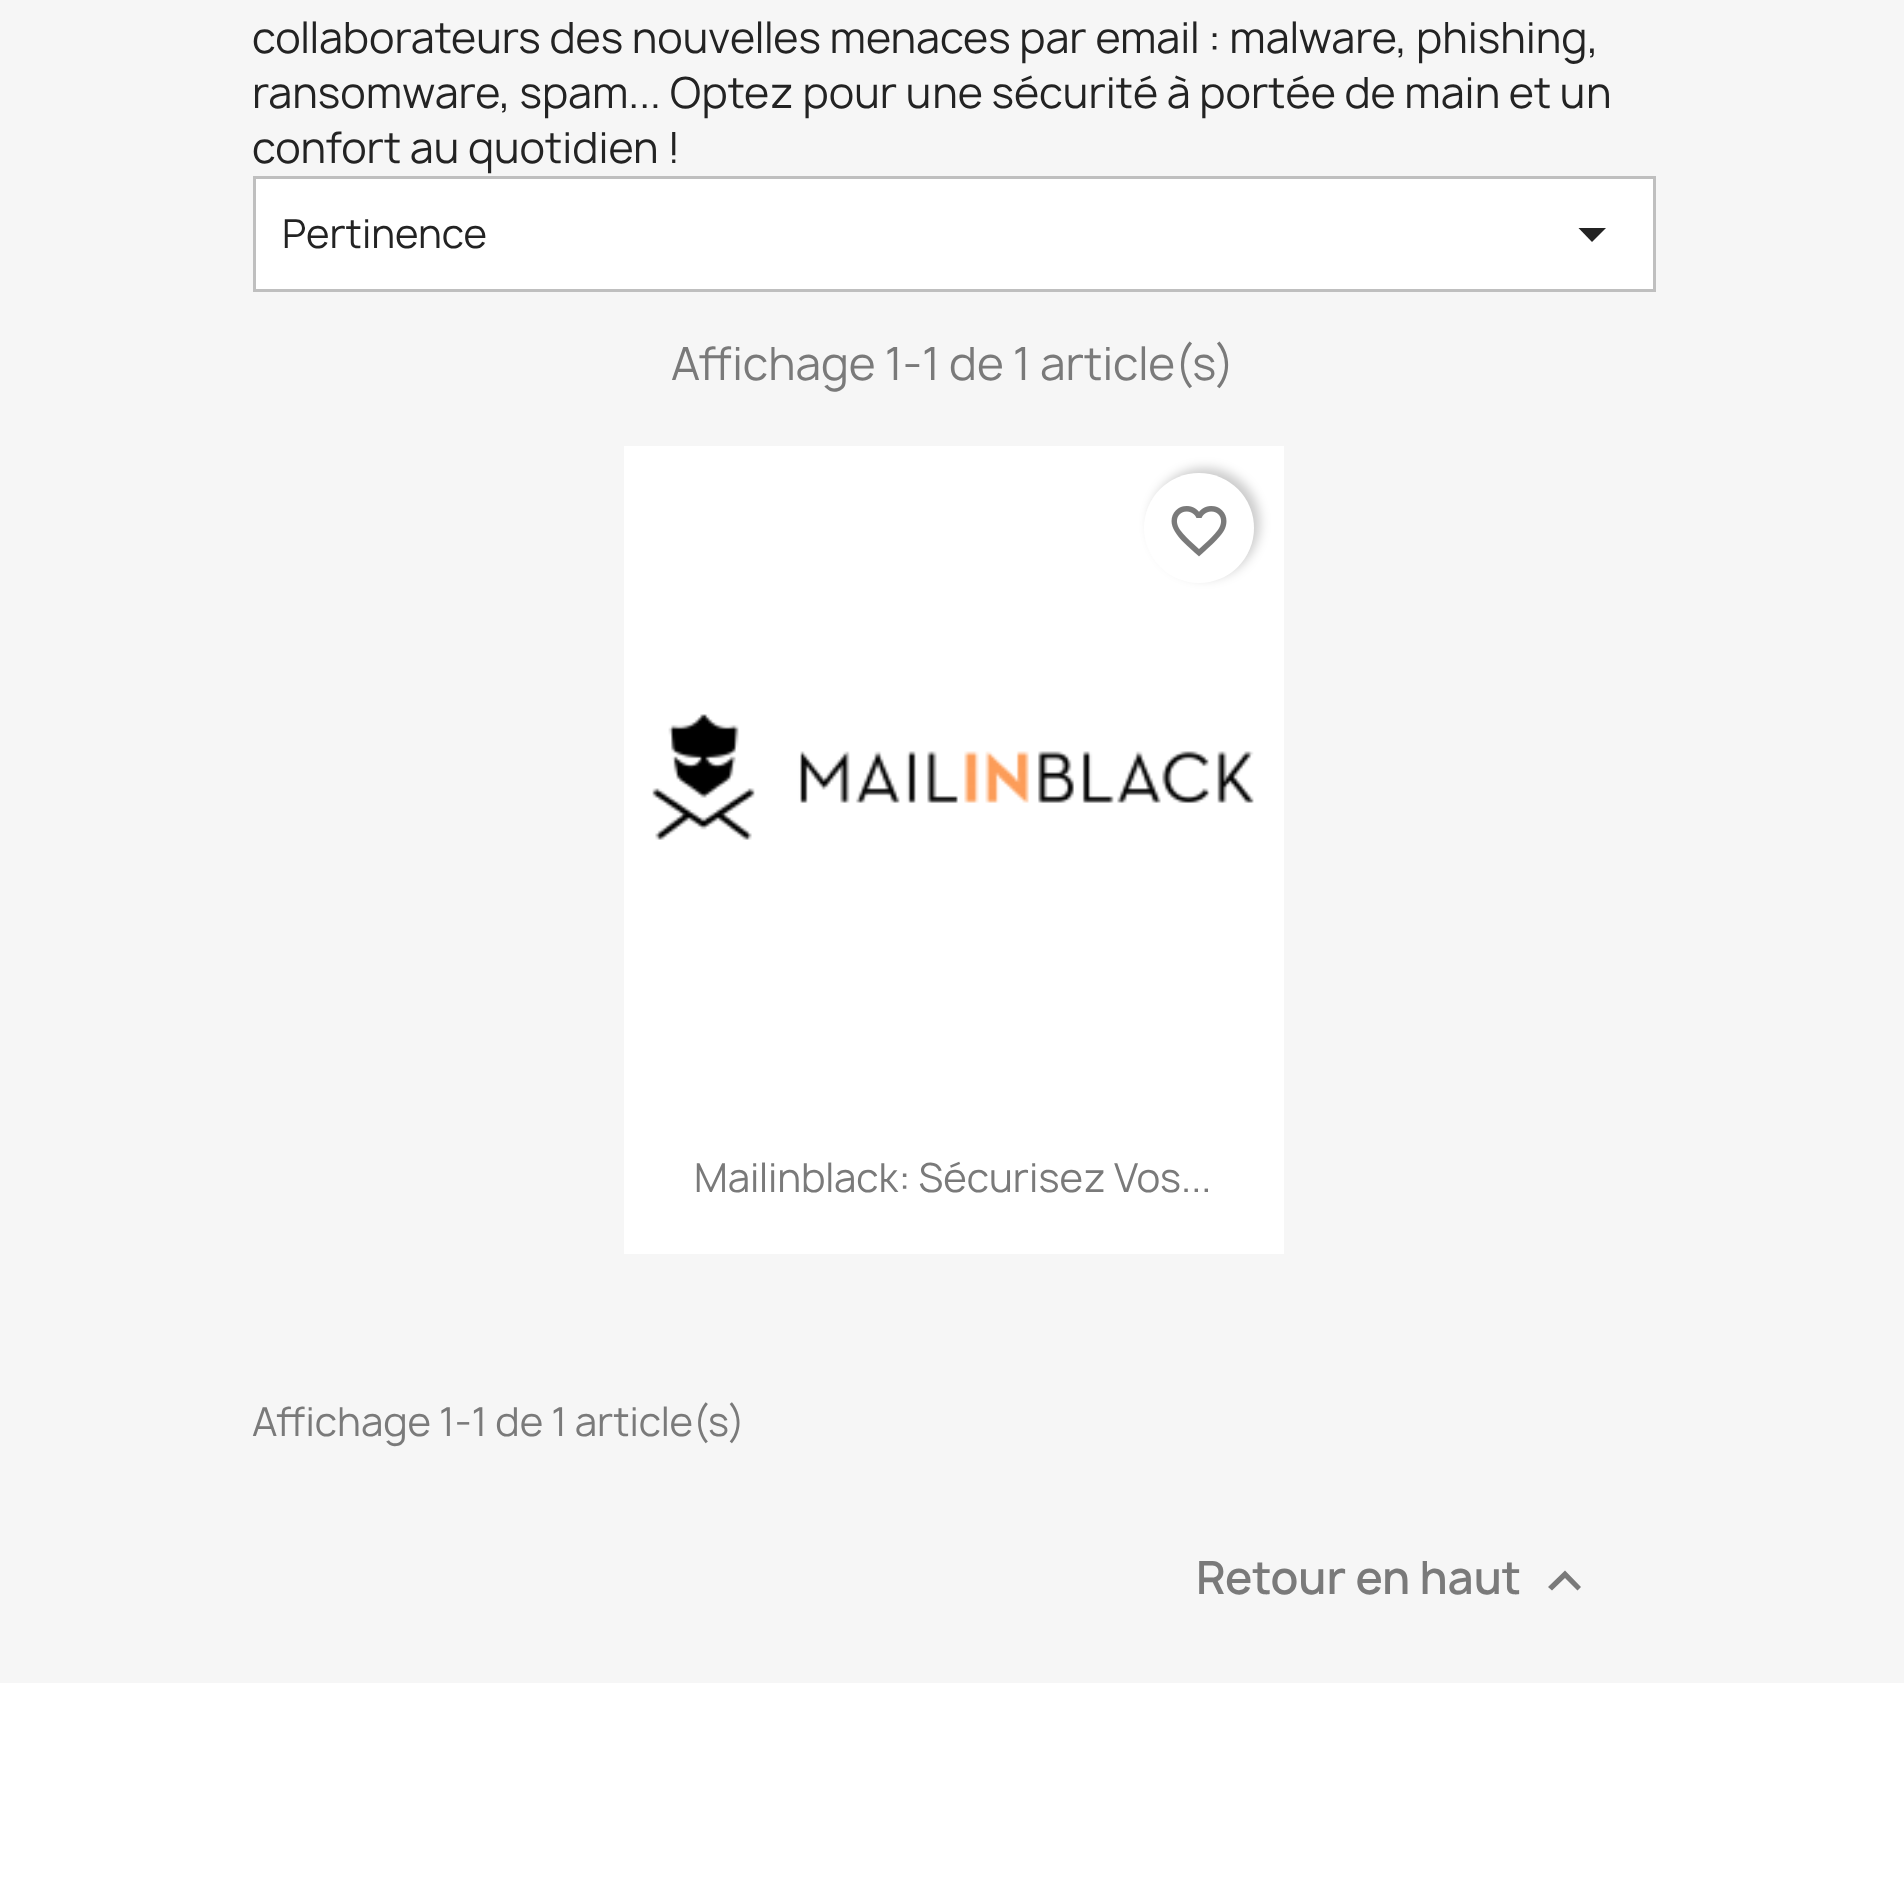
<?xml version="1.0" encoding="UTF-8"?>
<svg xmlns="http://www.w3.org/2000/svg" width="1904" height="1881">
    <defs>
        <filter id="blur1" x="-50%" y="-200%" width="200%" height="500%"><feGaussianBlur stdDeviation="5.5"/></filter>
    </defs>
    <rect width="100%" height="100%" fill="#FFFFFF"/>
    <rect x="0" y="0" width="1904" height="1683" fill="#F6F6F6"/>
    <text font-family="Manrope" font-size="41.25" fill="#232323">
        <tspan x="252" y="53">collaborateurs des nouvelles menaces par email : malware, phishing,</tspan>
        <tspan x="252" y="108">ransomware, spam... Optez pour une sécurité à portée de main et un</tspan>
        <tspan x="252" y="163">confort au quotidien !</tspan>
    </text>
    <rect x="254.5" y="177.5" width="1400" height="113" fill="#FFFFFF" stroke="#BFBFBF" stroke-width="3"/>
    <text x="282" y="248" font-family="Manrope" font-size="38.5" fill="#232323">Pertinence</text>
    <path d="M 1578.5 228 H 1606 L 1592 242 Z" fill="#232323"/>
    <text x="671" y="380" font-family="Manrope" font-size="44" fill="#7A7A7A">Affichage 1-1 de 1 article(s)</text>
    <rect x="624" y="446" width="660" height="808" fill="#FFFFFF"/>
    <rect x="1150" y="468" width="110" height="110" rx="55" fill="#000000" fill-opacity="0.2" filter="url(#blur1)"/>
    <circle cx="1199" cy="528" r="55" fill="#FFFFFF"/>
    <image x="1171" y="506" width="56" height="51" href="img_01.png"/>
    <image x="652" y="714" width="602" height="126" href="img_02.png"/>
    <text x="694" y="1192" font-family="Manrope" font-size="38.5" fill="#7A7A7A">Mailinblack: Sécurisez Vos...</text>
    <text x="252" y="1436" font-family="Manrope" font-size="38.5" fill="#7A7A7A">Affichage 1-1 de 1 article(s)</text>
    <text x="1196" y="1594" font-family="Manrope" font-size="44" font-weight="600" fill="#7A7A7A">Retour en haut</text>
    <path d="M 1552 1590.5 L 1548 1587 L 1565 1570.5 L 1581 1587 L 1577.5 1590.5 L 1565 1578 Z" fill="#7A7A7A"/>
</svg>
